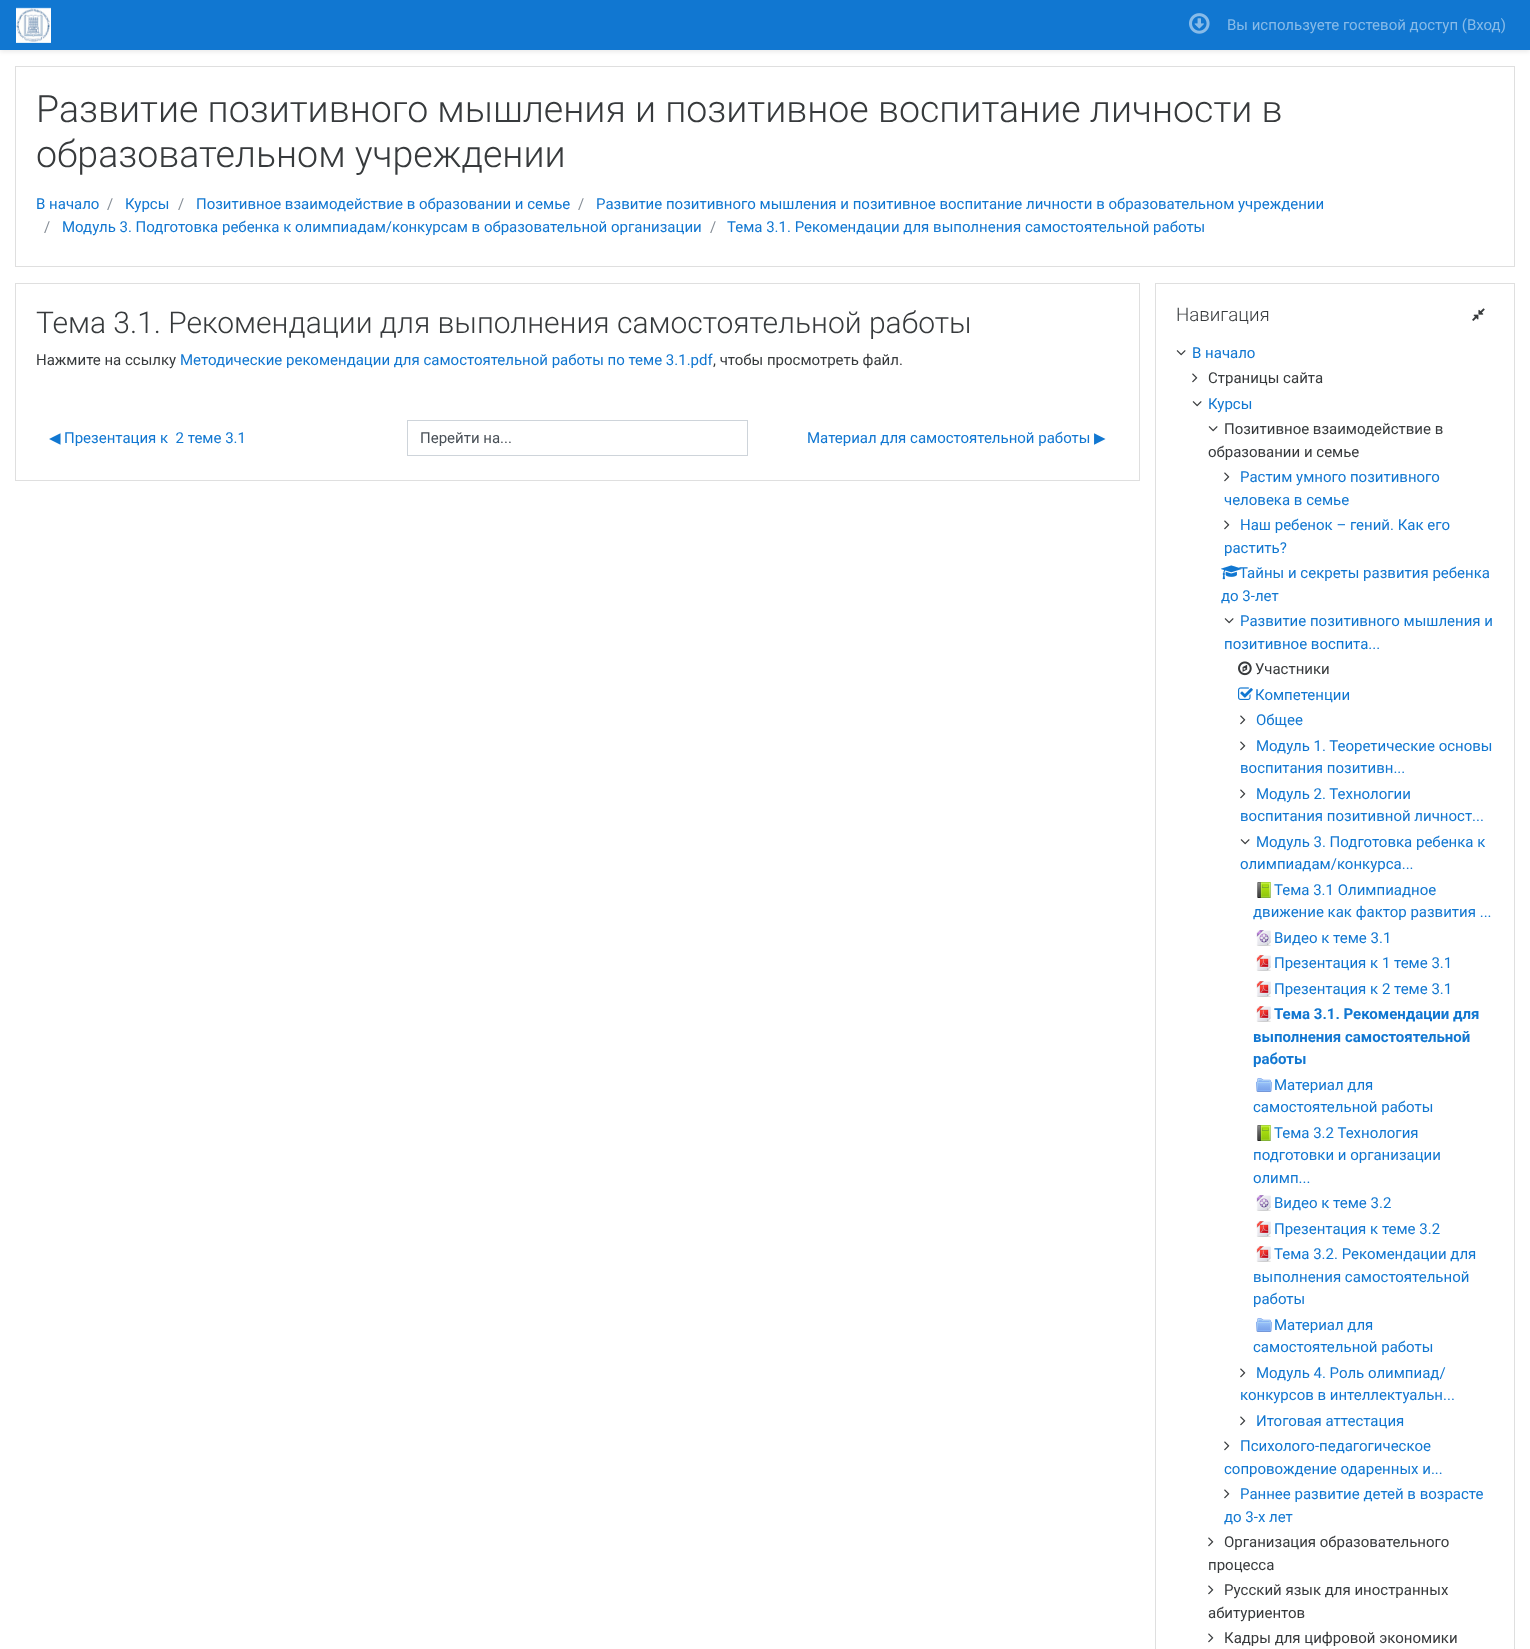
<?xml version="1.0" encoding="UTF-8"?>
<svg xmlns="http://www.w3.org/2000/svg" width="1530" height="1649">
    <defs>
        <filter id="blur1" x="-50%" y="-200%" width="200%" height="500%"><feGaussianBlur stdDeviation="2"/></filter>
    </defs>
    <rect width="100%" height="100%" fill="#FFFFFF"/>
    <rect x="0" y="2" width="1530" height="50" fill="#000000" fill-opacity="0.08" filter="url(#blur1)"/>
    <rect x="0" y="0" width="1530" height="50" fill="#1177D1"/>
    <image x="16" y="7" width="35" height="36" href="img_01.png"/>
    <image x="1189" y="13" width="21" height="21" href="img_02.png"/>
    <text x="1227" y="30" font-family="Roboto" font-size="15" fill="#88BBE8">Вы используете гостевой доступ (Вход)</text>
    <rect x="15.5" y="66.5" width="1499" height="200" fill="none" stroke="#DFDFDF"/>
    <text font-family="Roboto" font-size="37.5" font-weight="300" fill="#373A3C">
        <tspan x="36" y="122">Развитие позитивного мышления и позитивное воспитание личности в</tspan>
        <tspan x="36" y="167">образовательном учреждении</tspan>
    </text>
    <text x="36" y="209" font-family="Roboto" font-size="15" fill="#1177D1">В начало</text>
    <text x="107" y="209" font-family="Roboto" font-size="15" fill="#868E96">/</text>
    <text x="125" y="209" font-family="Roboto" font-size="15" fill="#1177D1">Курсы</text>
    <text x="178" y="209" font-family="Roboto" font-size="15" fill="#868E96">/</text>
    <text x="196" y="209" font-family="Roboto" font-size="15" fill="#1177D1">Позитивное взаимодействие в образовании и семье</text>
    <text x="578" y="209" font-family="Roboto" font-size="15" fill="#868E96">/</text>
    <text x="596" y="209" font-family="Roboto" font-size="15" fill="#1177D1">Развитие позитивного мышления и позитивное воспитание личности в образовательном учреждении</text>
    <text x="44" y="232" font-family="Roboto" font-size="15" fill="#868E96">/</text>
    <text x="62" y="232" font-family="Roboto" font-size="15" fill="#1177D1">Модуль 3. Подготовка ребенка к олимпиадам/конкурсам в образовательной организации</text>
    <text x="710" y="232" font-family="Roboto" font-size="15" fill="#868E96">/</text>
    <text x="727" y="232" font-family="Roboto" font-size="15" fill="#1177D1">Тема 3.1. Рекомендации для выполнения самостоятельной работы</text>
    <rect x="15.5" y="283.5" width="1124" height="197" fill="none" stroke="#DFDFDF"/>
    <text x="36" y="333" font-family="Roboto" font-size="30" font-weight="300" fill="#373A3C">Тема 3.1. Рекомендации для выполнения самостоятельной работы</text>
    <text x="36" y="365" font-family="Roboto" font-size="15" fill="#373A3C">Нажмите на ссылку</text>
    <text x="180" y="365" font-family="Roboto" font-size="15" fill="#1177D1">Методические рекомендации для самостоятельной работы по теме 3.1.pdf</text>
    <text x="713" y="365" font-family="Roboto" font-size="15" fill="#373A3C">, чтобы просмотреть файл.</text>
    <text x="49" y="443" font-family="DejaVu Sans" font-size="15" fill="#1177D1">◀︎</text>
    <text x="64" y="443" font-family="Roboto" font-size="15" fill="#1177D1" xml:space="preserve">Презентация к  2 теме 3.1</text>
    <rect x="407.5" y="420.5" width="340" height="35" fill="none" stroke="#CED4DA"/>
    <text x="420" y="443" font-family="Roboto" font-size="15" fill="#495057">Перейти на...</text>
    <text x="807" y="443" font-family="Roboto" font-size="15" fill="#1177D1">Материал для самостоятельной работы</text>
    <text x="1094" y="443" font-family="DejaVu Sans" font-size="15" fill="#1177D1">▶︎</text>
    <rect x="1155.5" y="283.5" width="359" height="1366" fill="none" stroke="#DFDFDF"/>
    <text x="1176" y="321" font-family="Roboto" font-size="18.75" font-weight="300" fill="#373A3C">Навигация</text>
    <image x="1472" y="308" width="13" height="13" href="img_03.png"/>
    <image x="1176" y="350" width="10" height="6" href="img_04.png"/>
    <text x="1192" y="358" font-family="Roboto" font-size="15" fill="#1177D1">В начало</text>
    <image x="1192" y="373" width="6" height="10" href="img_05.png"/>
    <text x="1208" y="383" font-family="Roboto" font-size="15" fill="#373A3C">Страницы сайта</text>
    <image x="1192" y="401" width="10" height="6" href="img_04.png"/>
    <text x="1208" y="409" font-family="Roboto" font-size="15" fill="#1177D1">Курсы</text>
    <image x="1208" y="426" width="10" height="6" href="img_04.png"/>
    <text x="1224" y="434" font-family="Roboto" font-size="15" fill="#373A3C">Позитивное взаимодействие в</text>
    <text x="1208" y="457" font-family="Roboto" font-size="15" fill="#373A3C">образовании и семье</text>
    <image x="1224" y="472" width="6" height="10" href="img_05.png"/>
    <text x="1240" y="482" font-family="Roboto" font-size="15" fill="#1177D1">Растим умного позитивного</text>
    <text x="1224" y="505" font-family="Roboto" font-size="15" fill="#1177D1">человека в семье</text>
    <image x="1224" y="520" width="6" height="10" href="img_05.png"/>
    <text x="1240" y="530" font-family="Roboto" font-size="15" fill="#1177D1">Наш ребенок – гений. Как его</text>
    <text x="1224" y="553" font-family="Roboto" font-size="15" fill="#1177D1">растить?</text>
    <image x="1221" y="565" width="21" height="15" href="img_06.png"/>
    <text x="1239" y="578" font-family="Roboto" font-size="15" fill="#1177D1">Тайны и секреты развития ребенка</text>
    <text x="1221" y="601" font-family="Roboto" font-size="15" fill="#1177D1">до 3-лет</text>
    <image x="1224" y="618" width="10" height="6" href="img_04.png"/>
    <text x="1240" y="626" font-family="Roboto" font-size="15" fill="#1177D1">Развитие позитивного мышления и</text>
    <text x="1224" y="649" font-family="Roboto" font-size="15" fill="#1177D1">позитивное воспита...</text>
    <image x="1238" y="661" width="14" height="15" href="img_07.png"/>
    <text x="1255" y="674" font-family="Roboto" font-size="15" fill="#373A3C">Участники</text>
    <image x="1238" y="687" width="15" height="13" href="img_08.png"/>
    <text x="1255" y="700" font-family="Roboto" font-size="15" fill="#1177D1">Компетенции</text>
    <image x="1240" y="715" width="6" height="10" href="img_05.png"/>
    <text x="1256" y="725" font-family="Roboto" font-size="15" fill="#1177D1">Общее</text>
    <image x="1240" y="741" width="6" height="10" href="img_05.png"/>
    <text x="1256" y="751" font-family="Roboto" font-size="15" fill="#1177D1">Модуль 1. Теоретические основы</text>
    <text x="1240" y="773" font-family="Roboto" font-size="15" fill="#1177D1">воспитания позитивн...</text>
    <image x="1240" y="789" width="6" height="10" href="img_05.png"/>
    <text x="1256" y="799" font-family="Roboto" font-size="15" fill="#1177D1">Модуль 2. Технологии</text>
    <text x="1240" y="821" font-family="Roboto" font-size="15" fill="#1177D1">воспитания позитивной личност...</text>
    <image x="1240" y="839" width="10" height="6" href="img_04.png"/>
    <text x="1256" y="847" font-family="Roboto" font-size="15" fill="#1177D1">Модуль 3. Подготовка ребенка к</text>
    <text x="1240" y="869" font-family="Roboto" font-size="15" fill="#1177D1">олимпиадам/конкурса...</text>
    <image x="1257" y="882" width="14" height="16" href="img_09.png"/>
    <text x="1274" y="895" font-family="Roboto" font-size="15" fill="#1177D1">Тема 3.1 Олимпиадное</text>
    <text x="1253" y="917" font-family="Roboto" font-size="15" fill="#1177D1">движение как фактор развития ...</text>
    <image x="1256" y="930" width="15" height="16" href="img_10.png"/>
    <text x="1274" y="943" font-family="Roboto" font-size="15" fill="#1177D1">Видео к теме 3.1</text>
    <image x="1256" y="955" width="15" height="16" href="img_11.png"/>
    <text x="1274" y="968" font-family="Roboto" font-size="15" fill="#1177D1">Презентация к 1 теме 3.1</text>
    <image x="1256" y="981" width="15" height="16" href="img_11.png"/>
    <text x="1274" y="994" font-family="Roboto" font-size="15" fill="#1177D1">Презентация к 2 теме 3.1</text>
    <image x="1256" y="1006" width="15" height="16" href="img_11.png"/>
    <text x="1274" y="1019" font-family="Roboto" font-size="15" font-weight="700" fill="#1177D1">Тема 3.1. Рекомендации для</text>
    <text font-family="Roboto" font-size="15" font-weight="700" fill="#1177D1">
        <tspan x="1253" y="1042">выполнения самостоятельной</tspan>
        <tspan x="1253" y="1064">работы</tspan>
    </text>
    <image x="1256" y="1078" width="16" height="14" href="img_12.png"/>
    <text x="1274" y="1090" font-family="Roboto" font-size="15" fill="#1177D1">Материал для</text>
    <text x="1253" y="1112" font-family="Roboto" font-size="15" fill="#1177D1">самостоятельной работы</text>
    <image x="1257" y="1125" width="14" height="16" href="img_13.png"/>
    <text x="1274" y="1138" font-family="Roboto" font-size="15" fill="#1177D1">Тема 3.2 Технология</text>
    <text font-family="Roboto" font-size="15" fill="#1177D1">
        <tspan x="1253" y="1160">подготовки и организации</tspan>
        <tspan x="1253" y="1183">олимп...</tspan>
    </text>
    <image x="1256" y="1195" width="15" height="16" href="img_10.png"/>
    <text x="1274" y="1208" font-family="Roboto" font-size="15" fill="#1177D1">Видео к теме 3.2</text>
    <image x="1256" y="1221" width="15" height="16" href="img_11.png"/>
    <text x="1274" y="1234" font-family="Roboto" font-size="15" fill="#1177D1">Презентация к теме 3.2</text>
    <image x="1256" y="1246" width="15" height="16" href="img_11.png"/>
    <text x="1274" y="1259" font-family="Roboto" font-size="15" fill="#1177D1">Тема 3.2. Рекомендации для</text>
    <text font-family="Roboto" font-size="15" fill="#1177D1">
        <tspan x="1253" y="1282">выполнения самостоятельной</tspan>
        <tspan x="1253" y="1304">работы</tspan>
    </text>
    <image x="1256" y="1318" width="16" height="14" href="img_14.png"/>
    <text x="1274" y="1330" font-family="Roboto" font-size="15" fill="#1177D1">Материал для</text>
    <text x="1253" y="1352" font-family="Roboto" font-size="15" fill="#1177D1">самостоятельной работы</text>
    <image x="1240" y="1368" width="6" height="10" href="img_05.png"/>
    <text x="1256" y="1378" font-family="Roboto" font-size="15" fill="#1177D1">Модуль 4. Роль олимпиад/</text>
    <text x="1240" y="1400" font-family="Roboto" font-size="15" fill="#1177D1">конкурсов в интеллектуальн...</text>
    <image x="1240" y="1416" width="6" height="10" href="img_05.png"/>
    <text x="1256" y="1426" font-family="Roboto" font-size="15" fill="#1177D1">Итоговая аттестация</text>
    <image x="1224" y="1441" width="6" height="10" href="img_05.png"/>
    <text x="1240" y="1451" font-family="Roboto" font-size="15" fill="#1177D1">Психолого-педагогическое</text>
    <text x="1224" y="1474" font-family="Roboto" font-size="15" fill="#1177D1">сопровождение одаренных и...</text>
    <image x="1224" y="1489" width="6" height="10" href="img_05.png"/>
    <text x="1240" y="1499" font-family="Roboto" font-size="15" fill="#1177D1">Раннее развитие детей в возрасте</text>
    <text x="1224" y="1522" font-family="Roboto" font-size="15" fill="#1177D1">до 3-х лет</text>
    <image x="1208" y="1537" width="6" height="10" href="img_05.png"/>
    <text x="1224" y="1547" font-family="Roboto" font-size="15" fill="#373A3C">Организация образовательного</text>
    <text x="1208" y="1570" font-family="Roboto" font-size="15" fill="#373A3C">процесса</text>
    <image x="1208" y="1585" width="6" height="10" href="img_05.png"/>
    <text x="1224" y="1595" font-family="Roboto" font-size="15" fill="#373A3C">Русский язык для иностранных</text>
    <text x="1208" y="1618" font-family="Roboto" font-size="15" fill="#373A3C">абитуриентов</text>
    <image x="1208" y="1633" width="6" height="10" href="img_05.png"/>
    <text x="1224" y="1643" font-family="Roboto" font-size="15" fill="#373A3C">Кадры для цифровой экономики</text>
</svg>
